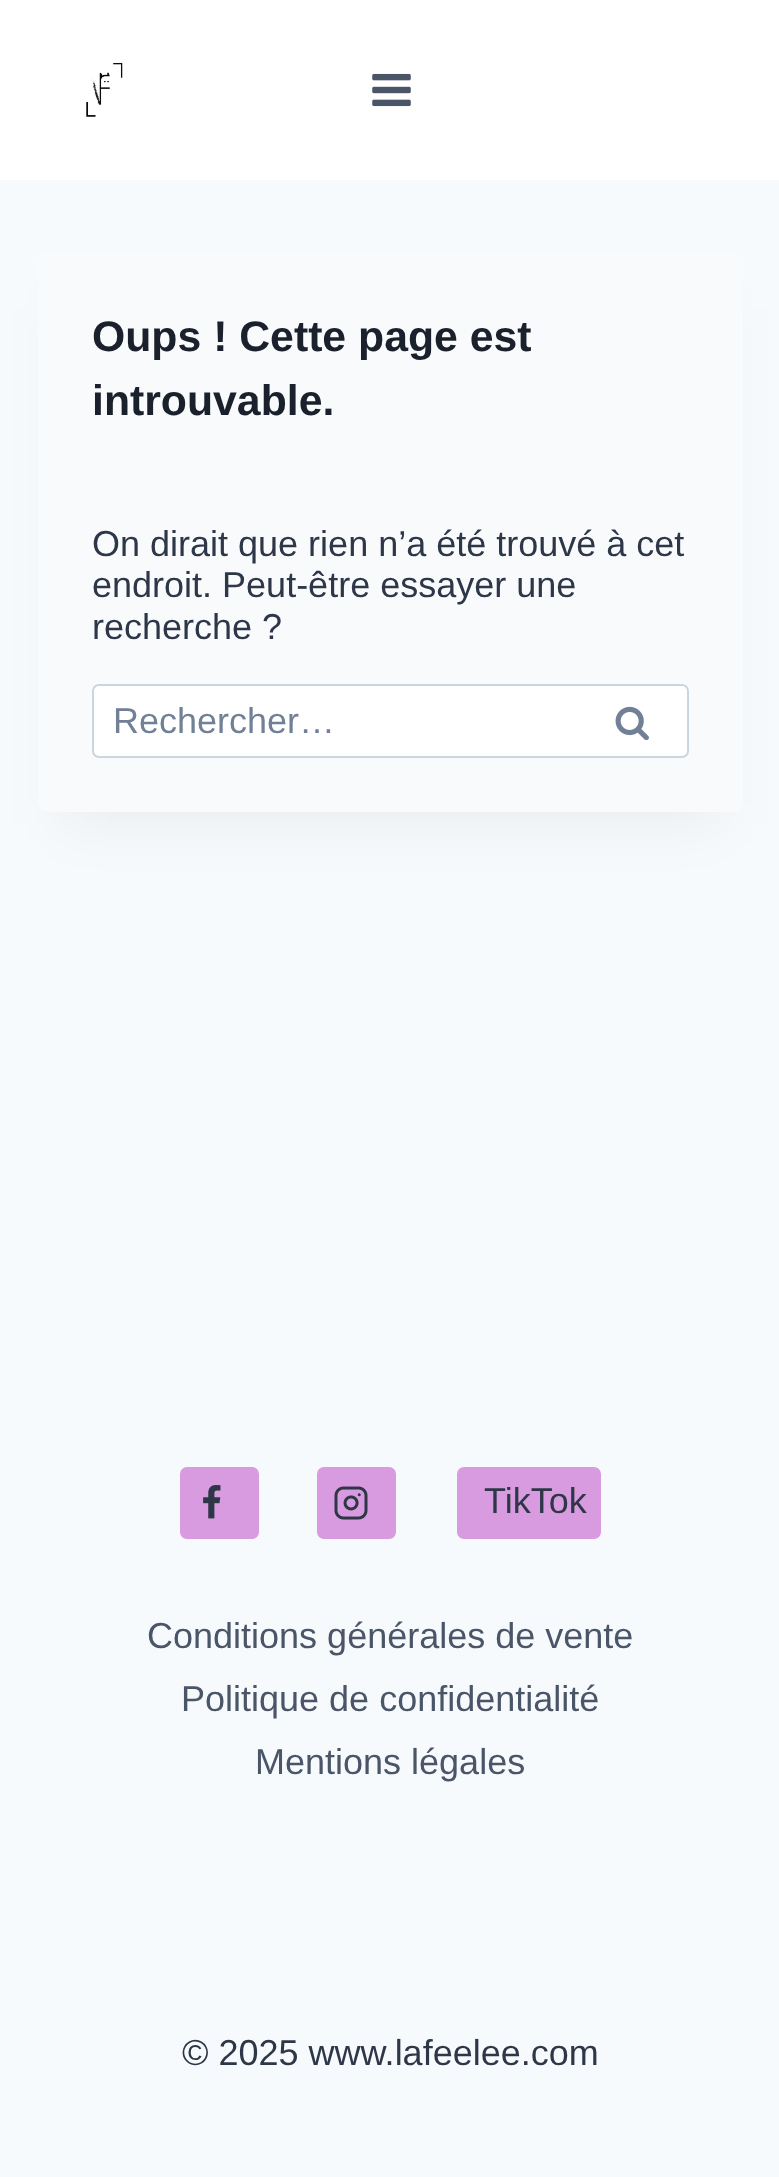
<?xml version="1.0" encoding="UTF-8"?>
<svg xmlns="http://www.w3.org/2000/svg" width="779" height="2177">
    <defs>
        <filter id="blur1" x="-50%" y="-200%" width="200%" height="500%"><feGaussianBlur stdDeviation="28"/></filter>
    </defs>
    <rect width="100%" height="100%" fill="#F7FAFC"/>
    <rect x="0" y="0" width="779" height="180" fill="#FFFFFF"/>
    <image x="86" y="63" width="37" height="54" href="img_01.png"/>
    <image x="372" y="73" width="39" height="34" href="img_02.png"/>
    <rect x="61" y="308" width="659" height="516" fill="#000000" fill-opacity="0.05" filter="url(#blur1)"/>
    <rect x="38" y="252" width="705" height="560" rx="9" fill="#F8FAFC"/>
    <text font-family="Liberation Sans" font-size="42.75" font-weight="700" fill="#1A202C">
        <tspan x="92" y="351">Oups ! Cette page est</tspan>
        <tspan x="92" y="415">introuvable.</tspan>
    </text>
    <text font-family="Liberation Sans" font-size="36" fill="#2D3748">
        <tspan x="92" y="556">On dirait que rien n’a été trouvé à cet</tspan>
        <tspan x="92" y="597">endroit. Peut-être essayer une</tspan>
        <tspan x="92" y="639">recherche ?</tspan>
    </text>
    <rect x="93" y="685" width="595" height="72" rx="6" fill="#FFFFFF" stroke="#CBD5E0" stroke-width="2"/>
    <text x="113" y="733" font-family="Liberation Sans" font-size="36" fill="#718096">Rechercher…</text>
    <image x="615" y="706" width="34" height="34" href="img_03.png"/>
    <rect x="180" y="1467" width="79" height="72" rx="7" fill="#D99BDF"/>
    <image x="203" y="1485" width="18" height="34" href="img_04.png"/>
    <rect x="317" y="1467" width="79" height="72" rx="7" fill="#D99BDF"/>
    <image x="334" y="1486" width="34" height="34" href="img_05.png"/>
    <rect x="457" y="1467" width="144" height="72" rx="7" fill="#D99BDF"/>
    <text x="484" y="1513" font-family="Liberation Sans" font-size="36" fill="#2D3748">TikTok</text>
    <text x="147" y="1648" font-family="Liberation Sans" font-size="36" fill="#4A5568">Conditions générales de vente</text>
    <text x="181" y="1711" font-family="Liberation Sans" font-size="36" fill="#4A5568">Politique de confidentialité</text>
    <text x="255" y="1774" font-family="Liberation Sans" font-size="36" fill="#4A5568">Mentions légales</text>
    <text x="182" y="2065" font-family="Liberation Sans" font-size="36" fill="#2D3748">© 2025 www.lafeelee.com</text>
</svg>
